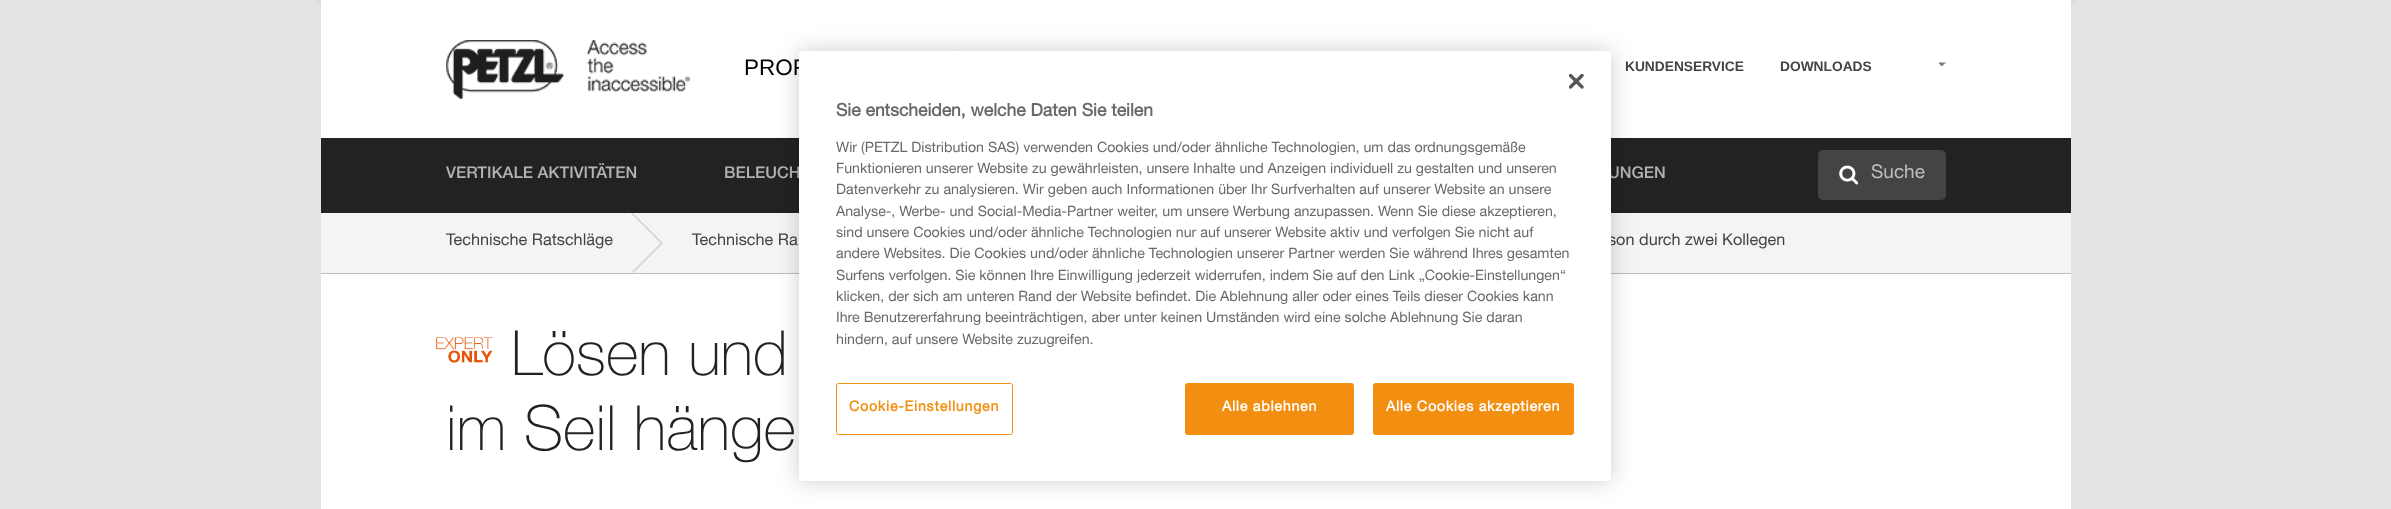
<?xml version="1.0" encoding="UTF-8"?>
<svg xmlns="http://www.w3.org/2000/svg" width="2391" height="509">
    <defs>
        <filter id="blur1" x="-50%" y="-200%" width="200%" height="500%"><feGaussianBlur stdDeviation="4"/></filter>
        <filter id="blur2" x="-50%" y="-200%" width="200%" height="500%"><feGaussianBlur stdDeviation="11"/></filter>
    </defs>
    <rect width="100%" height="100%" fill="#E4E4E4"/>
    <rect x="321" y="274" width="1750" height="235" fill="#FFFFFF"/>
    <rect x="321" y="-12" width="1750" height="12" fill="#888888" fill-opacity="0.7" filter="url(#blur1)"/>
    <rect x="321" y="0" width="1750" height="138" fill="#FFFFFF"/>
    <image x="446" y="40" width="244" height="59" href="img_01.png"/>
    <rect x="953" y="50" width="1" height="1" fill="#E6E6E6"/>
    <text x="744" y="75" font-family="Liberation Sans" font-size="22.5" fill="#000000">PROF</text>
    <text x="1625" y="71" font-family="Liberation Sans" font-size="13.75" font-weight="700" fill="#444444">KUNDENSERVICE</text>
    <text x="1780" y="71" font-family="Liberation Sans" font-size="13.75" font-weight="700" fill="#444444">DOWNLOADS</text>
    <image x="1938" y="62" width="9" height="5" href="img_02.png"/>
    <rect x="321" y="138" width="1750" height="75" fill="#222222"/>
    <text x="446" y="178" font-family="Helvetica Neue" font-size="16.25" font-weight="500" fill="#B2B2B2">VERTIKALE AKTIVITÄTEN</text>
    <text x="724" y="178" font-family="Helvetica Neue" font-size="16.25" font-weight="500" fill="#B2B2B2">BELEUCH</text>
    <text x="1608" y="178" font-family="Helvetica Neue" font-size="16.25" font-weight="500" fill="#B2B2B2">UNGEN</text>
    <rect x="1818" y="150" width="128" height="50" rx="5" fill="#444444"/>
    <image x="1838" y="165" width="21" height="20" href="img_03.png"/>
    <text x="1871" y="178" font-family="Helvetica Neue" font-size="19" fill="#BEBEBE">Suche</text>
    <rect x="321" y="213" width="1750" height="60" fill="#F4F4F4"/>
    <rect x="321" y="273" width="1750" height="1" fill="#BEBEBE"/>
    <text x="446" y="245" font-family="Helvetica Neue" font-size="16.25" fill="#444444">Technische Ratschläge</text>
    <image x="631" y="213" width="32" height="60" href="img_04.png"/>
    <text x="692" y="245" font-family="Helvetica Neue" font-size="16.25" fill="#444444">Technische Ra</text>
    <text x="1608" y="245" font-family="Helvetica Neue" font-size="16.25" fill="#444444">son durch zwei Kollegen</text>
    <image x="436" y="337" width="57" height="26" href="img_05.png"/>
    <text x="511" y="375" font-family="Helvetica Neue" font-size="62.5" font-weight="200" fill="#222222">Lösen und</text>
    <text x="446" y="450" font-family="Helvetica Neue" font-size="62.5" font-weight="200" fill="#222222">im Seil hänge</text>
    <rect x="799" y="51" width="812" height="430" rx="3" fill="#000000" fill-opacity="0.2" filter="url(#blur2)"/>
    <rect x="799" y="51" width="812" height="430" rx="3" fill="#FFFFFF"/>
    <image x="1569" y="74" width="15" height="15" href="img_06.png"/>
    <text x="836" y="116" font-family="Helvetica Neue" font-size="17.5" font-weight="700" fill="#696969">Sie entscheiden, welche Daten Sie teilen</text>
    <text font-family="Helvetica Neue" font-size="14.23" fill="#696969">
        <tspan x="836" y="152">Wir (PETZL Distribution SAS) verwenden Cookies und/oder ähnliche Technologien, um das ordnungsgemäße</tspan>
        <tspan x="836" y="173">Funktionieren unserer Website zu gewährleisten, unsere Inhalte und Anzeigen individuell zu gestalten und unseren</tspan>
        <tspan x="836" y="194">Datenverkehr zu analysieren. Wir geben auch Informationen über Ihr Surfverhalten auf unserer Website an unsere</tspan>
        <tspan x="836" y="216">Analyse-, Werbe- und Social-Media-Partner weiter, um unsere Werbung anzupassen. Wenn Sie diese akzeptieren,</tspan>
        <tspan x="836" y="237">sind unsere Cookies und/oder ähnliche Technologien nur auf unserer Website aktiv und verfolgen Sie nicht auf</tspan>
        <tspan x="836" y="258">andere Websites. Die Cookies und/oder ähnliche Technologien unserer Partner werden Sie während Ihres gesamten</tspan>
        <tspan x="836" y="280">Surfens verfolgen. Sie können Ihre Einwilligung jederzeit widerrufen, indem Sie auf den Link „Cookie-Einstellungen“</tspan>
        <tspan x="836" y="301">klicken, der sich am unteren Rand der Website befindet. Die Ablehnung aller oder eines Teils dieser Cookies kann</tspan>
        <tspan x="836" y="322">Ihre Benutzererfahrung beeinträchtigen, aber unter keinen Umständen wird eine solche Ablehnung Sie daran</tspan>
        <tspan x="836" y="344">hindern, auf unsere Website zuzugreifen.</tspan>
    </text>
    <rect x="836.5" y="383.5" width="176" height="51" rx="2" fill="none" stroke="#F38F10"/>
    <text x="849" y="411" font-family="Helvetica Neue" font-size="14.23" font-weight="700" letter-spacing="0.75" fill="#F38F10">Cookie-Einstellungen</text>
    <rect x="1185.5" y="383.5" width="168" height="51" rx="2" fill="#F38F10" stroke="#F38F10"/>
    <text x="1222" y="411" font-family="Helvetica Neue" font-size="14.23" font-weight="700" letter-spacing="0.75" fill="#FFFFFF">Alle ablehnen</text>
    <rect x="1373.5" y="383.5" width="200" height="51" rx="2" fill="#F38F10" stroke="#F38F10"/>
    <text x="1386" y="411" font-family="Helvetica Neue" font-size="14.23" font-weight="700" letter-spacing="0.75" fill="#FFFFFF">Alle Cookies akzeptieren</text>
</svg>
